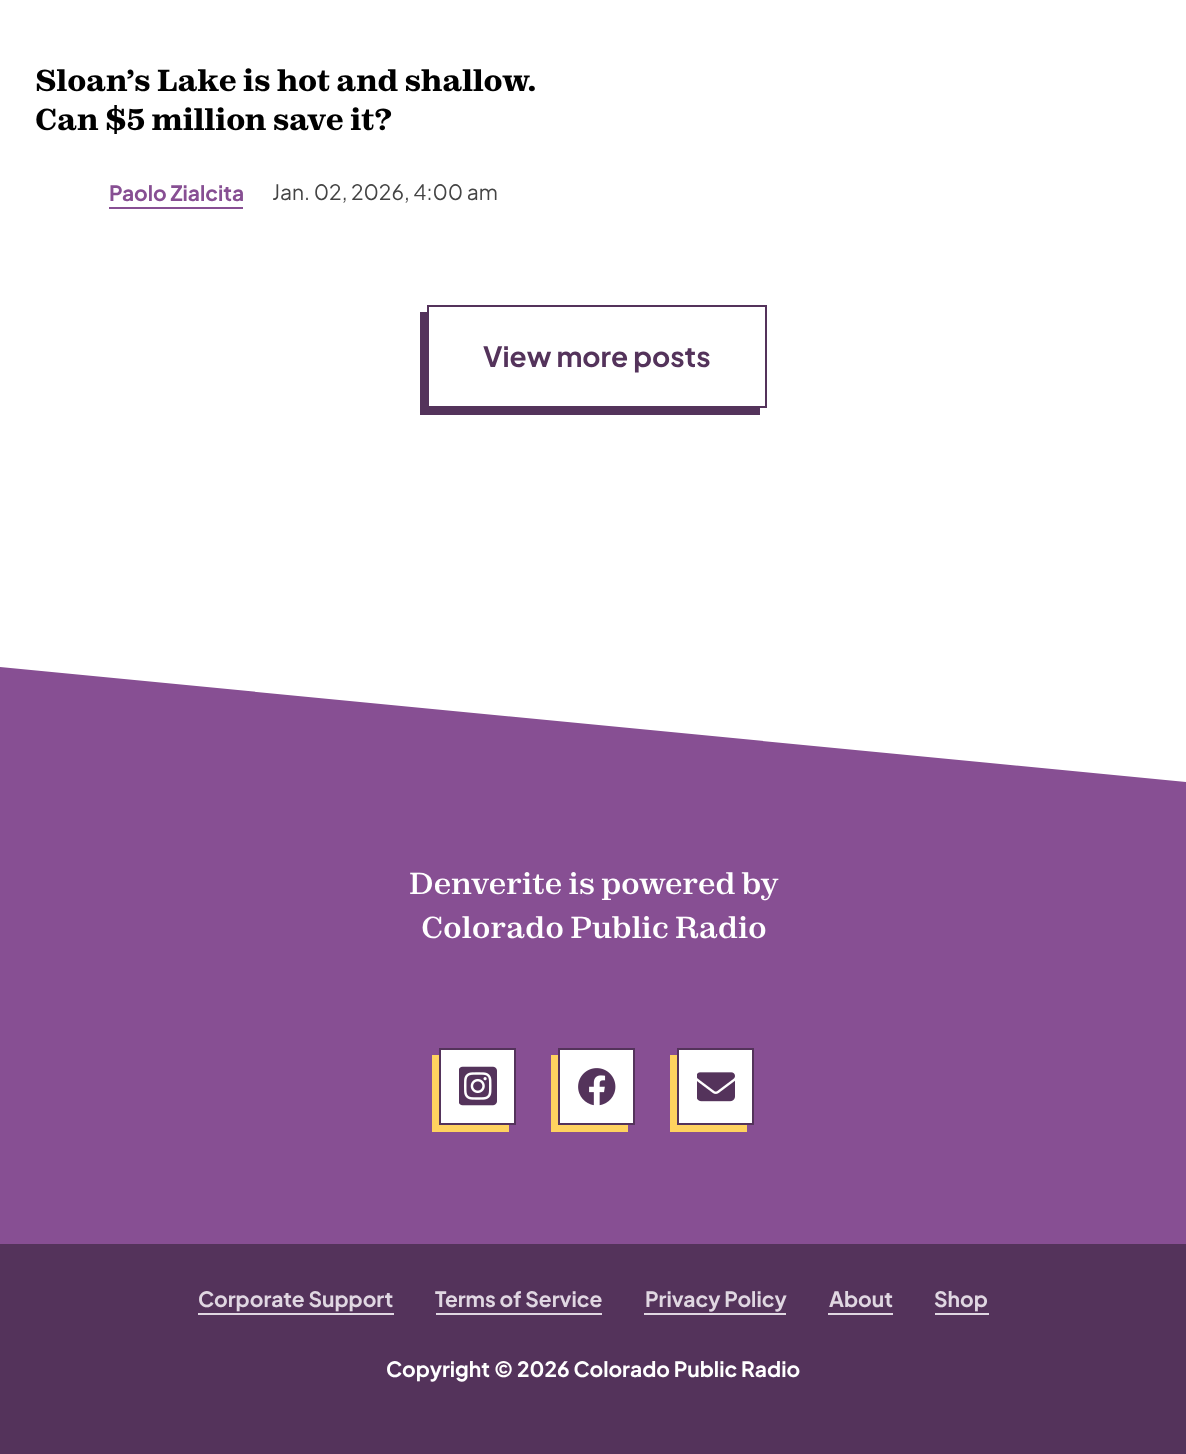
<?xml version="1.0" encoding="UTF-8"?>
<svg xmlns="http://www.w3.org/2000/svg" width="1186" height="1454">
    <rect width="100%" height="100%" fill="#FFFFFF"/>
    <text font-family="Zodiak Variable" font-size="30.25" font-weight="700" fill="#000000">
        <tspan x="35" y="91">Sloan’s Lake is hot and shallow.</tspan>
        <tspan x="35" y="130">Can $5 million save it?</tspan>
    </text>
    <text x="109" y="201" font-family="Plus Jakarta Sans" font-size="21" font-weight="700" fill="#874F93">Paolo Zialcita</text>
    <rect x="109" y="207" width="134" height="2" fill="#874F93"/>
    <text x="272" y="200" font-family="Plus Jakarta Sans" font-size="21" fill="#444444">Jan. 02, 2026, 4:00 am</text>
    <rect x="420" y="312" width="340" height="103" fill="#54335B"/>
    <rect x="429" y="312" width="331" height="94" fill="#FFFFFF"/>
    <rect x="428" y="306" width="338" height="101" fill="none" stroke="#54335B" stroke-width="2"/>
    <text x="483" y="367" font-family="Plus Jakarta Sans" font-size="28" font-weight="700" fill="#54335B">View more posts</text>
    <path d="M 0 667 V 1244 H 1186 V 782 Z" fill="#874F93"/>
    <text x="409" y="894" font-family="Zodiak Variable" font-size="30.25" font-weight="500" fill="#FFFFFF">Denverite is powered by</text>
    <text x="421" y="938" font-family="Zodiak Variable" font-size="30.25" font-weight="500" fill="#FFFFFF">Colorado Public Radio</text>
    <rect x="432" y="1055" width="77" height="77" fill="#FFD25F"/>
    <rect x="440" y="1049" width="75" height="75" fill="#FFFFFF" stroke="#54335B" stroke-width="2"/>
    <image x="459" y="1066" width="38" height="40" href="img_01.png"/>
    <rect x="551" y="1055" width="77" height="77" fill="#FFD25F"/>
    <rect x="559" y="1049" width="75" height="75" fill="#FFFFFF" stroke="#54335B" stroke-width="2"/>
    <image x="578" y="1068" width="38" height="38" href="img_02.png"/>
    <rect x="670" y="1055" width="77" height="77" fill="#FFD25F"/>
    <rect x="678" y="1049" width="75" height="75" fill="#FFFFFF" stroke="#54335B" stroke-width="2"/>
    <image x="697" y="1072" width="38" height="30" href="img_03.png"/>
    <rect x="0" y="1244" width="1186" height="210" fill="#54335B"/>
    <text x="198" y="1307" font-family="Plus Jakarta Sans" font-size="21" font-weight="700" fill="#E0D7E2">Corporate Support</text>
    <rect x="198" y="1313" width="196" height="2" fill="#E0D7E2"/>
    <text x="435" y="1307" font-family="Plus Jakarta Sans" font-size="21" font-weight="700" fill="#E0D7E2">Terms of Service</text>
    <rect x="436" y="1313" width="166" height="2" fill="#E0D7E2"/>
    <text x="645" y="1307" font-family="Plus Jakarta Sans" font-size="21" font-weight="700" fill="#E0D7E2">Privacy Policy</text>
    <rect x="644" y="1313" width="142" height="2" fill="#E0D7E2"/>
    <text x="829" y="1307" font-family="Plus Jakarta Sans" font-size="21" font-weight="700" fill="#E0D7E2">About</text>
    <rect x="828" y="1313" width="65" height="2" fill="#E0D7E2"/>
    <text x="934" y="1307" font-family="Plus Jakarta Sans" font-size="21" font-weight="700" fill="#E0D7E2">Shop</text>
    <rect x="935" y="1313" width="54" height="2" fill="#E0D7E2"/>
    <text x="386" y="1377" font-family="Plus Jakarta Sans" font-size="21" font-weight="700" fill="#FFFFFF">Copyright © 2026 Colorado Public Radio</text>
</svg>
